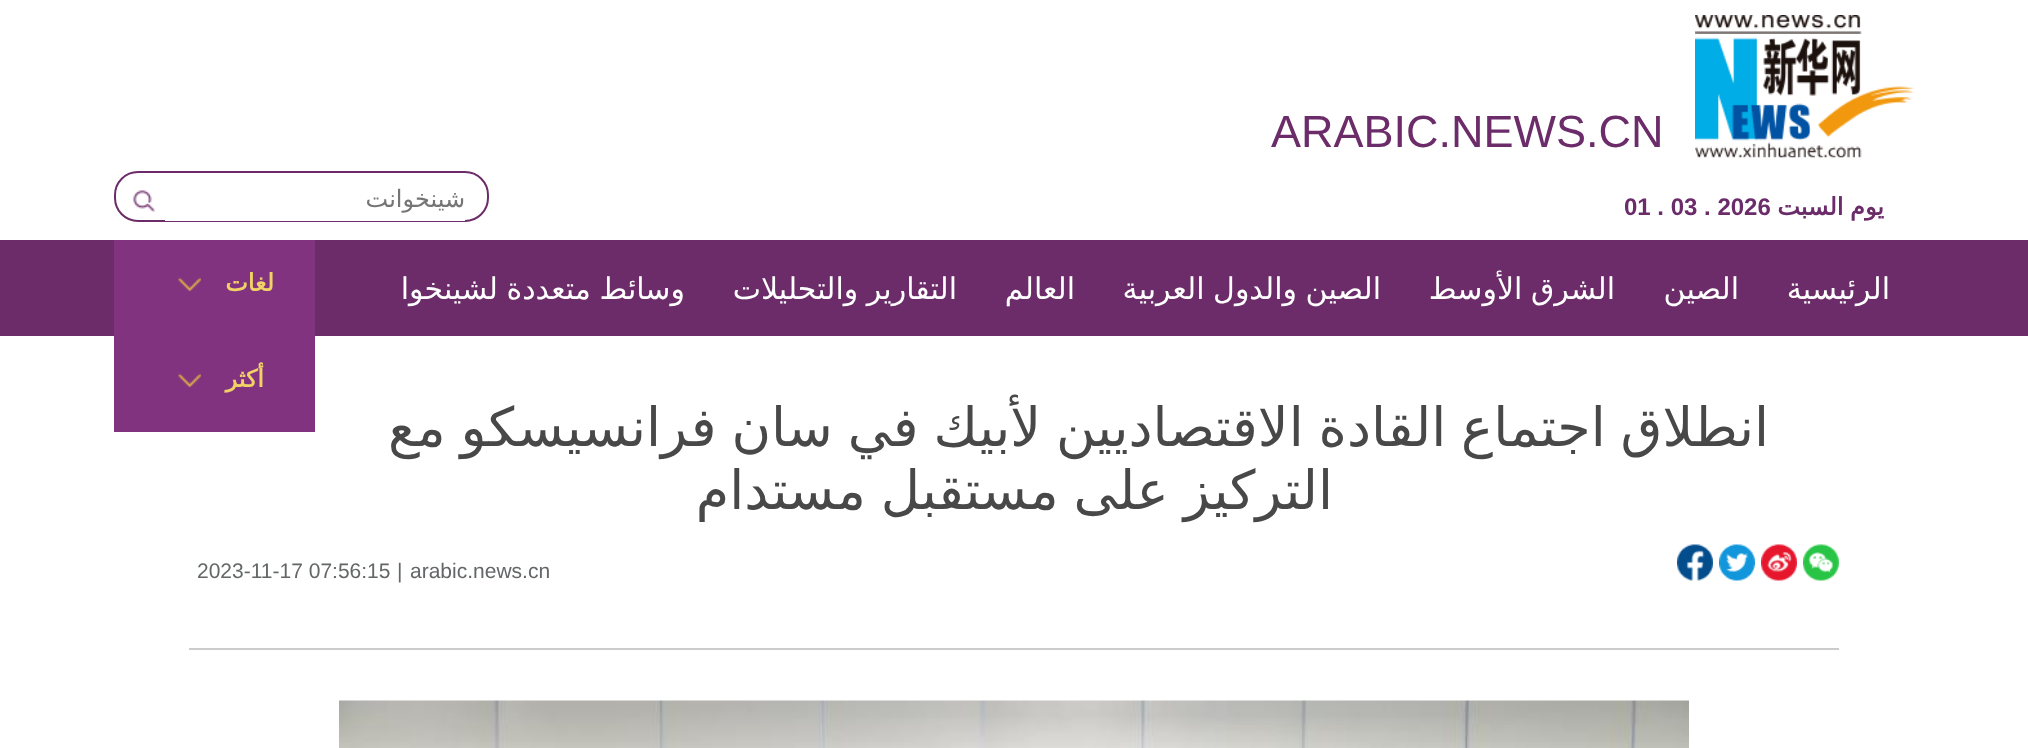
<?xml version="1.0" encoding="UTF-8"?>
<svg xmlns="http://www.w3.org/2000/svg" width="2028" height="748">
    <rect width="100%" height="100%" fill="#FFFFFF"/>
    <image x="1695" y="15" width="219" height="143" href="img_01.png"/>
    <text x="1271" y="147" font-family="Liberation Sans" font-size="45" fill="#6B2C69">ARABIC.NEWS.CN</text>
    <text x="1884" y="215" word-spacing="-1" font-family="DejaVu Sans" font-size="24" font-weight="700" direction="rtl" fill="#6B2C69">يوم السبت</text>
    <text x="1624" y="215" font-family="Liberation Sans" font-size="24" font-weight="700" fill="#6B2C69">01 . 03 . 2026</text>
    <rect x="115" y="172" width="373" height="49" rx="23" fill="none" stroke="#6B2C69" stroke-width="2"/>
    <rect x="165" y="220" width="300" height="1" fill="#FFFFFF"/>
    <text x="465" y="207" font-family="DejaVu Sans" font-size="24" direction="rtl" fill="#757575">شينخوانت</text>
    <image x="133" y="190" width="22" height="22" href="img_02.png"/>
    <rect x="0" y="240" width="2028" height="96" fill="#6B2C69"/>
    <text x="1890" y="299" font-family="DejaVu Sans" font-size="30" direction="rtl" fill="#FFFFFF">الرئيسية</text>
    <text x="1739" y="299" font-family="DejaVu Sans" font-size="30" direction="rtl" fill="#FFFFFF">الصين</text>
    <text x="1615" y="299" word-spacing="-1" font-family="DejaVu Sans" font-size="30" direction="rtl" fill="#FFFFFF">الشرق الأوسط</text>
    <text x="1381" y="299" word-spacing="-1" font-family="DejaVu Sans" font-size="30" direction="rtl" fill="#FFFFFF">الصين والدول العربية</text>
    <text x="1075" y="299" font-family="DejaVu Sans" font-size="30" direction="rtl" fill="#FFFFFF">العالم</text>
    <text x="957" y="299" word-spacing="-1" font-family="DejaVu Sans" font-size="30" direction="rtl" fill="#FFFFFF">التقارير والتحليلات</text>
    <text x="685" y="299" word-spacing="-1" font-family="DejaVu Sans" font-size="30" direction="rtl" fill="#FFFFFF">وسائط متعددة لشينخوا</text>
    <rect x="114" y="240" width="201" height="192" fill="#823380"/>
    <text x="274" y="291" font-family="DejaVu Sans" font-size="24" font-weight="700" direction="rtl" fill="#F0D265">لغات</text>
    <image x="178" y="277" width="23" height="14" href="img_03.png"/>
    <text x="264" y="387" font-family="DejaVu Sans" font-size="24" font-weight="700" direction="rtl" fill="#F0D265">أكثر</text>
    <image x="178" y="373" width="23" height="14" href="img_03.png"/>
    <text x="1769" y="446" word-spacing="-2.25" font-family="DejaVu Sans" font-size="54" direction="rtl" fill="#484848">انطلاق اجتماع القادة الاقتصاديين لأبيك في سان فرانسيسكو مع</text>
    <text x="1333" y="509" word-spacing="-2.25" font-family="DejaVu Sans" font-size="54" direction="rtl" fill="#484848">التركيز على مستقبل مستدام</text>
    <image x="1803" y="544" width="36" height="37" href="img_04.png"/>
    <image x="1761" y="544" width="36" height="37" href="img_05.png"/>
    <image x="1719" y="544" width="36" height="37" href="img_06.png"/>
    <image x="1677" y="544" width="36" height="37" href="img_07.png"/>
    <text x="410" y="578" font-family="Liberation Sans" font-size="21" fill="#636767">arabic.news.cn</text>
    <text x="397" y="578" font-family="Liberation Sans" font-size="21" fill="#636767">|</text>
    <text x="197" y="578" font-family="Liberation Sans" font-size="21" fill="#636767">2023-11-17 07:56:15</text>
    <rect x="189" y="648" width="1650" height="2" fill="#CCCCCC"/>
    <image x="339" y="700" width="1350" height="48" href="img_08.png"/>
</svg>
